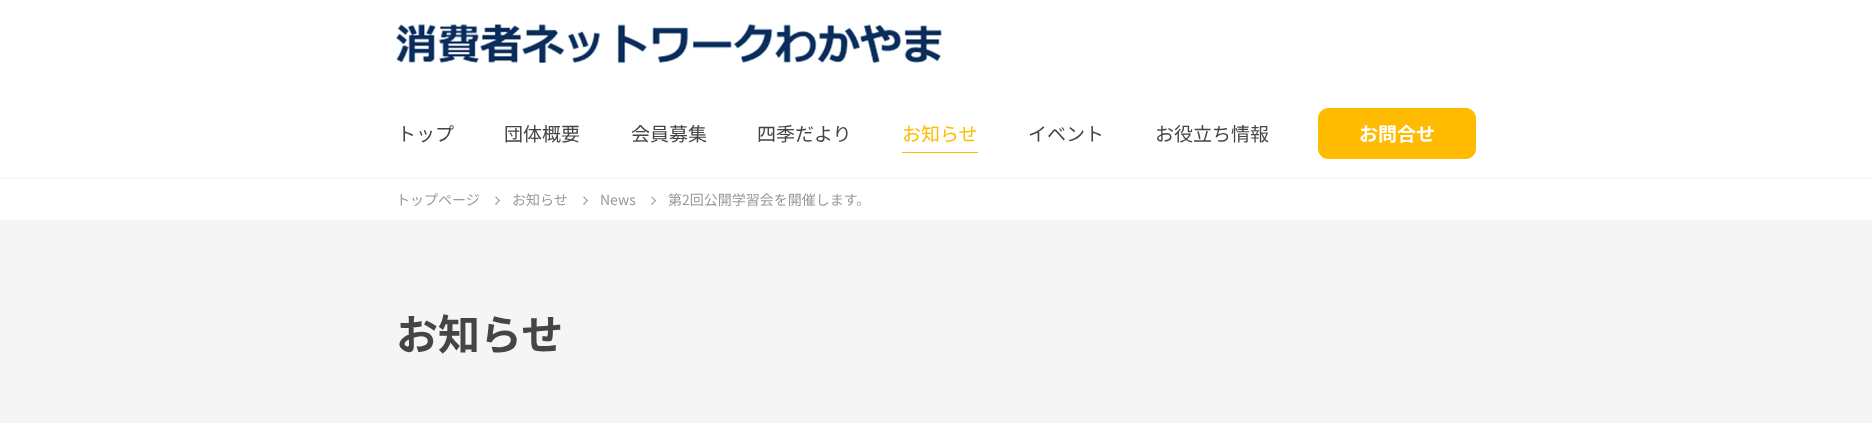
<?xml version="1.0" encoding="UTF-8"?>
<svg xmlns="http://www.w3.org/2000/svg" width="1872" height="441">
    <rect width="100%" height="100%" fill="#FFFFFF"/>
    <image x="396" y="24" width="546" height="39" href="img_01.png"/>
    <text x="397" y="141" font-family="Noto Sans JP" font-size="19" fill="#454545">トップ</text>
    <text x="504" y="141" font-family="Noto Sans JP" font-size="19" fill="#454545">団体概要</text>
    <text x="631" y="141" font-family="Noto Sans JP" font-size="19" fill="#454545">会員募集</text>
    <text x="757" y="141" font-family="Noto Sans JP" font-size="19" fill="#454545">四季だより</text>
    <text x="902" y="141" font-family="Noto Sans JP" font-size="19" fill="#FFBB00">お知らせ</text>
    <rect x="902" y="152" width="76" height="1" fill="#FFBB00"/>
    <text x="1028" y="141" font-family="Noto Sans JP" font-size="19" fill="#454545">イベント</text>
    <text x="1155" y="141" font-family="Noto Sans JP" font-size="19" fill="#454545">お役立ち情報</text>
    <rect x="1318.5" y="108.5" width="157" height="50" rx="9.5" fill="#FFBB00" stroke="#FFBB00"/>
    <text x="1359" y="141" font-family="Noto Sans JP" font-size="19" font-weight="700" fill="#FFFFFF">お問合せ</text>
    <rect x="0" y="178" width="1872" height="1" fill="#F5F5F5"/>
    <text x="396" y="205" font-family="Noto Sans JP" font-size="14" fill="#999999">トップページ</text>
    <path d="M 496 196.5 L 500 200.5 L 499.5 201.5 L 495 197 Z" fill="#999999"/>
    <path d="M 499.5 200 L 500 200.5 L 496 205 L 495 204 Z" fill="#999999"/>
    <text x="512" y="205" font-family="Noto Sans JP" font-size="14" fill="#999999">お知らせ</text>
    <path d="M 584 196.5 L 588 200.5 L 587.5 201.5 L 583 197 Z" fill="#999999"/>
    <path d="M 587.5 200 L 588 200.5 L 584 205 L 583 204 Z" fill="#999999"/>
    <text x="600" y="205" font-family="Noto Sans JP" font-size="14" fill="#999999">News</text>
    <path d="M 652 196.5 L 656 200.5 L 655.5 201.5 L 651 197 Z" fill="#999999"/>
    <path d="M 655.5 200 L 656 200.5 L 652 205 L 651 204 Z" fill="#999999"/>
    <text x="668" y="205" font-family="Noto Sans JP" font-size="14" fill="#999999">第2回公開学習会を開催します。</text>
    <rect x="0" y="220" width="1872" height="203" fill="#F5F5F5"/>
    <text x="396" y="350" font-family="Noto Sans JP" font-size="42" font-weight="700" fill="#454545">お知らせ</text>
</svg>
